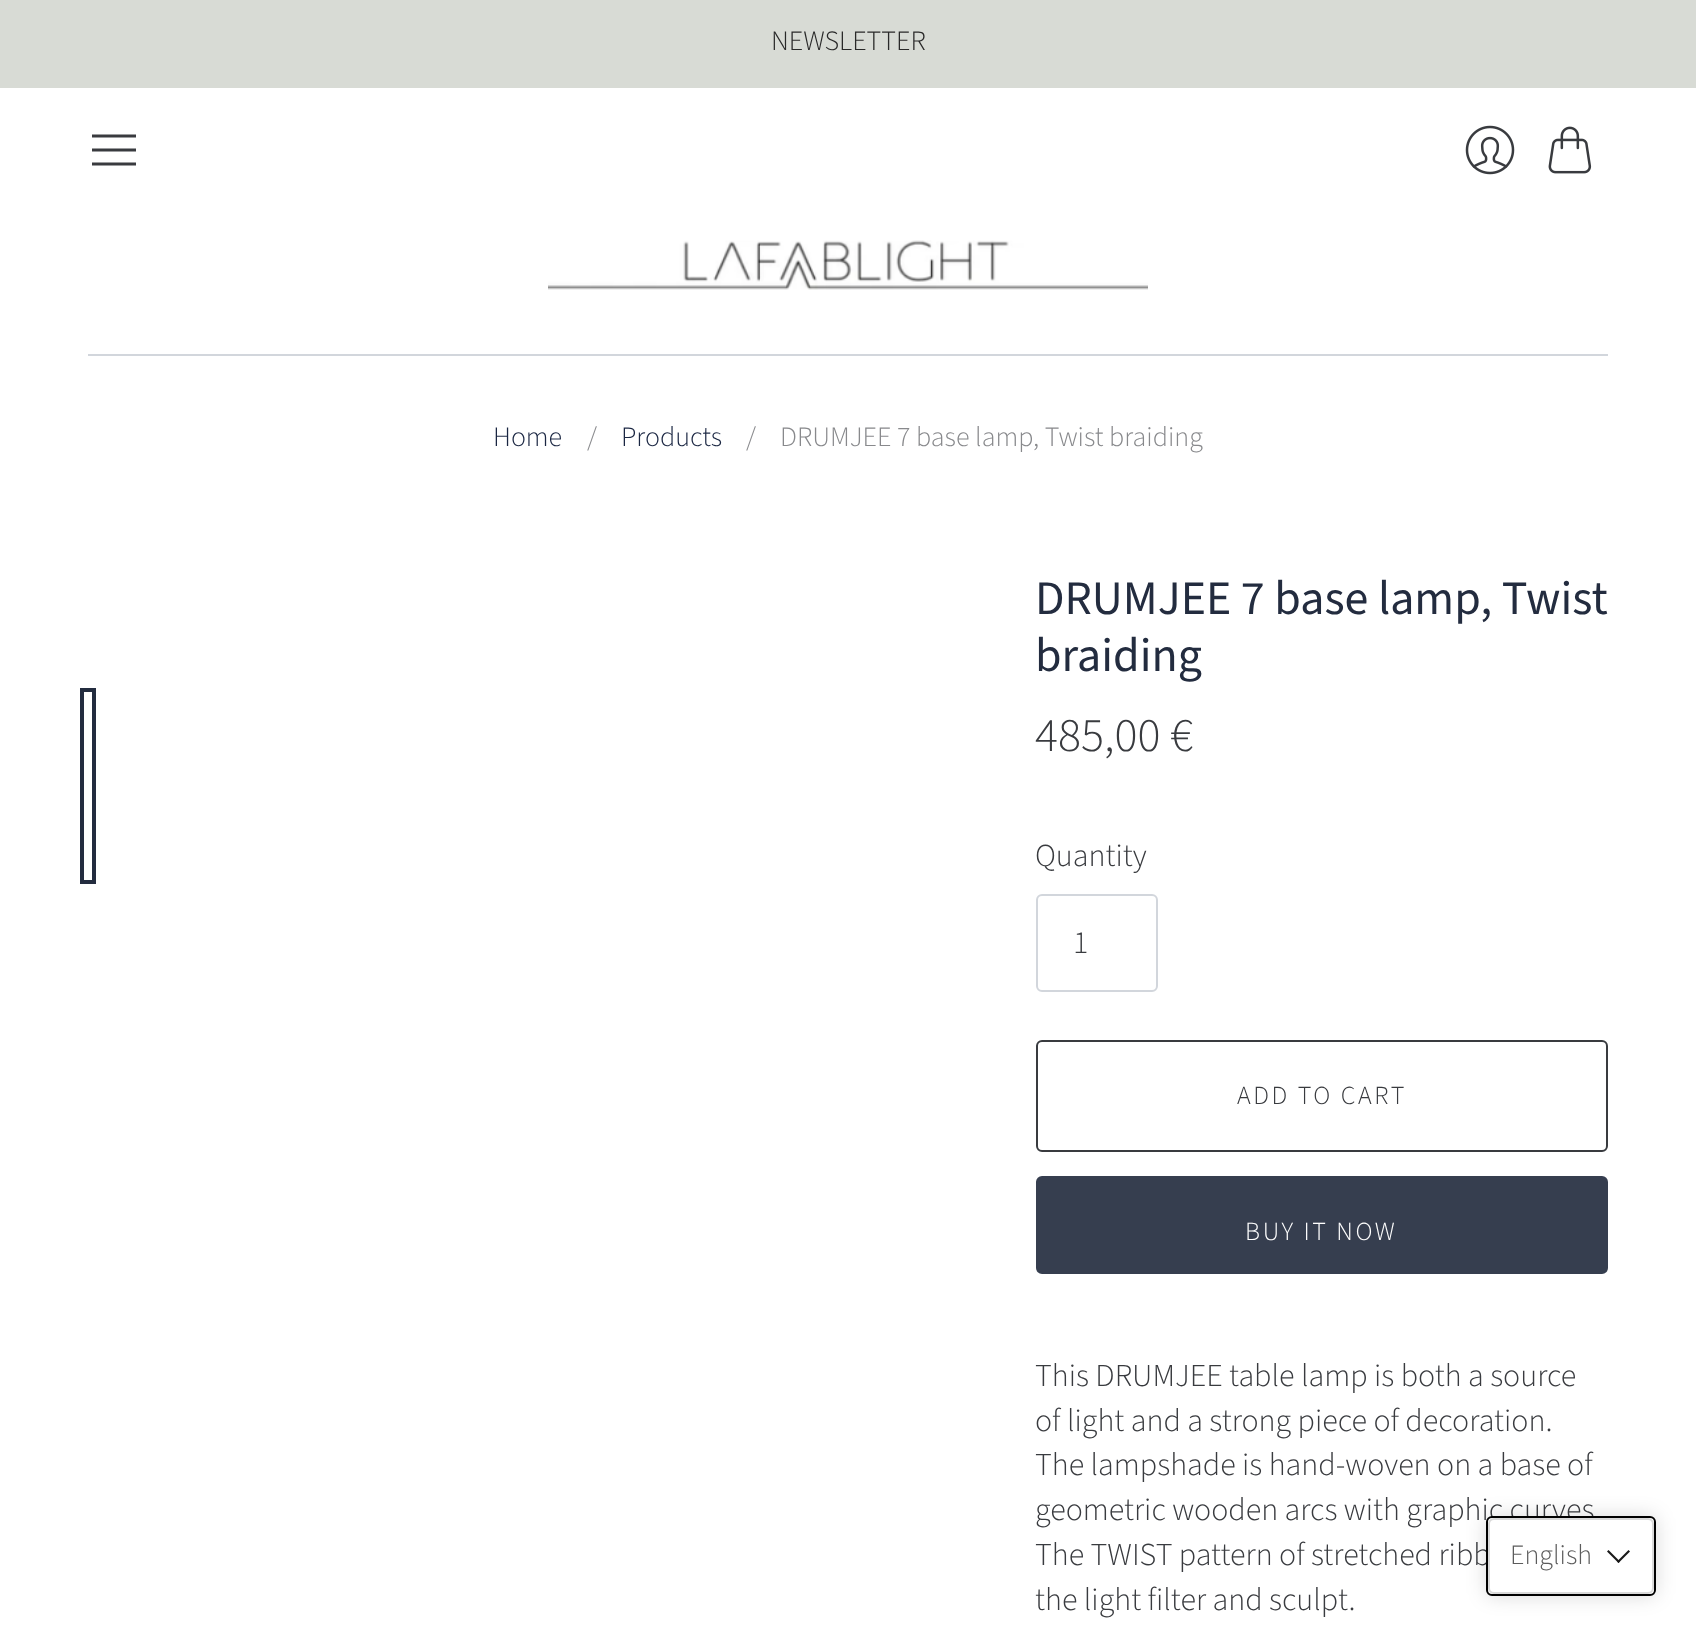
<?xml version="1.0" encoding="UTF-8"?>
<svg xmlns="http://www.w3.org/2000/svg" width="1696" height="1636">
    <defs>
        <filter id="blur1" x="-50%" y="-200%" width="200%" height="500%"><feGaussianBlur stdDeviation="10"/></filter>
    </defs>
    <rect width="100%" height="100%" fill="#FFFFFF"/>
    <rect x="0" y="0" width="1696" height="88" fill="#D8DBD5"/>
    <text x="771" y="50" font-family="Source Sans Pro" font-size="28" font-weight="300" fill="#292929">NEWSLETTER</text>
    <path d="M 92 136 H 136 M 92 150 H 136 M 92 164 H 136" fill="none" stroke="#393B3F" stroke-width="3"/>
    <image x="1465" y="125" width="50" height="50" href="img_01.png"/>
    <image x="1548" y="126" width="44" height="48" href="img_02.png"/>
    <rect x="88" y="354" width="1520" height="2" fill="#D2D6DC"/>
    <image x="548" y="240" width="600" height="50" href="img_03.png"/>
    <text x="493" y="446" font-family="Source Sans Pro" font-size="28" font-weight="300" fill="#1A2642">Home</text>
    <text x="587" y="446" font-family="Source Sans Pro" font-size="28" font-weight="300" fill="#88898C">/</text>
    <text x="621" y="446" font-family="Source Sans Pro" font-size="28" font-weight="300" fill="#1A2642">Products</text>
    <text x="746" y="446" font-family="Source Sans Pro" font-size="28" font-weight="300" fill="#88898C">/</text>
    <text x="780" y="446" font-family="Source Sans Pro" font-size="28" font-weight="300" fill="#88898C">DRUMJEE 7 base lamp, Twist braiding</text>
    <text font-family="Source Sans Pro" font-size="48" fill="#232C3F">
        <tspan x="1035" y="614">DRUMJEE 7 base lamp, Twist</tspan>
        <tspan x="1035" y="671">braiding</tspan>
    </text>
    <rect x="80" y="688" width="16" height="196" fill="#232C3F"/>
    <rect x="84" y="692" width="8" height="188" fill="#FFFFFF"/>
    <text x="1035" y="751" font-family="Source Sans Pro" font-size="48" font-weight="300" fill="#393B3F">485,00 €</text>
    <text x="1035" y="866" font-family="Source Sans Pro" font-size="32" font-weight="300" fill="#393B3F">Quantity</text>
    <rect x="1037" y="895" width="120" height="96" rx="5" fill="none" stroke="#D2D6DC" stroke-width="2"/>
    <text x="1073" y="953" font-family="Source Sans Pro" font-size="32" font-weight="300" fill="#393B3F">1</text>
    <rect x="1037" y="1041" width="570" height="110" rx="5" fill="none" stroke="#393B3F" stroke-width="2"/>
    <text x="1237" y="1104" font-family="Source Sans Pro" font-size="26" font-weight="300" letter-spacing="2.6" fill="#393B3F">ADD TO CART</text>
    <rect x="1037" y="1177" width="570" height="96" rx="5" fill="#363E4F" stroke="#363E4F" stroke-width="2"/>
    <text x="1245" y="1240" font-family="Source Sans Pro" font-size="26" font-weight="300" letter-spacing="2.6" fill="#FFFFFF">BUY IT NOW</text>
    <text font-family="Source Sans Pro" font-size="32" font-weight="300" fill="#393B3F">
        <tspan x="1035" y="1386">This DRUMJEE table lamp is both a source</tspan>
        <tspan x="1035" y="1431">of light and a strong piece of decoration.</tspan>
        <tspan x="1035" y="1475">The lampshade is hand-woven on a base of</tspan>
        <tspan x="1035" y="1520">geometric wooden arcs with graphic curves</tspan>
        <tspan x="1035" y="1565">The TWIST pattern of stretched ribb</tspan>
        <tspan x="1035" y="1610">the light filter and sculpt.</tspan>
    </text>
    <rect x="1486" y="1516" width="170" height="80" rx="6" fill="#000000" fill-opacity="0.15" filter="url(#blur1)"/>
    <rect x="1487" y="1517" width="168" height="78" rx="5" fill="#FFFFFF" stroke="#000000" stroke-width="2"/>
    <rect x="1489" y="1519" width="164" height="74" rx="5" fill="none" stroke="#D9D9D9" stroke-width="2"/>
    <text x="1510" y="1564" font-family="Source Sans Pro" font-size="28" font-weight="300" fill="#5C5C5C">English</text>
    <path d="M 1628.5 1550 L 1630 1551.5 L 1618.5 1563 L 1617 1561.5 Z" fill="#1A1A1A"/>
    <path d="M 1608.5 1550 L 1620 1561.5 L 1618.5 1563 L 1607 1551.5 Z" fill="#1A1A1A"/>
</svg>
